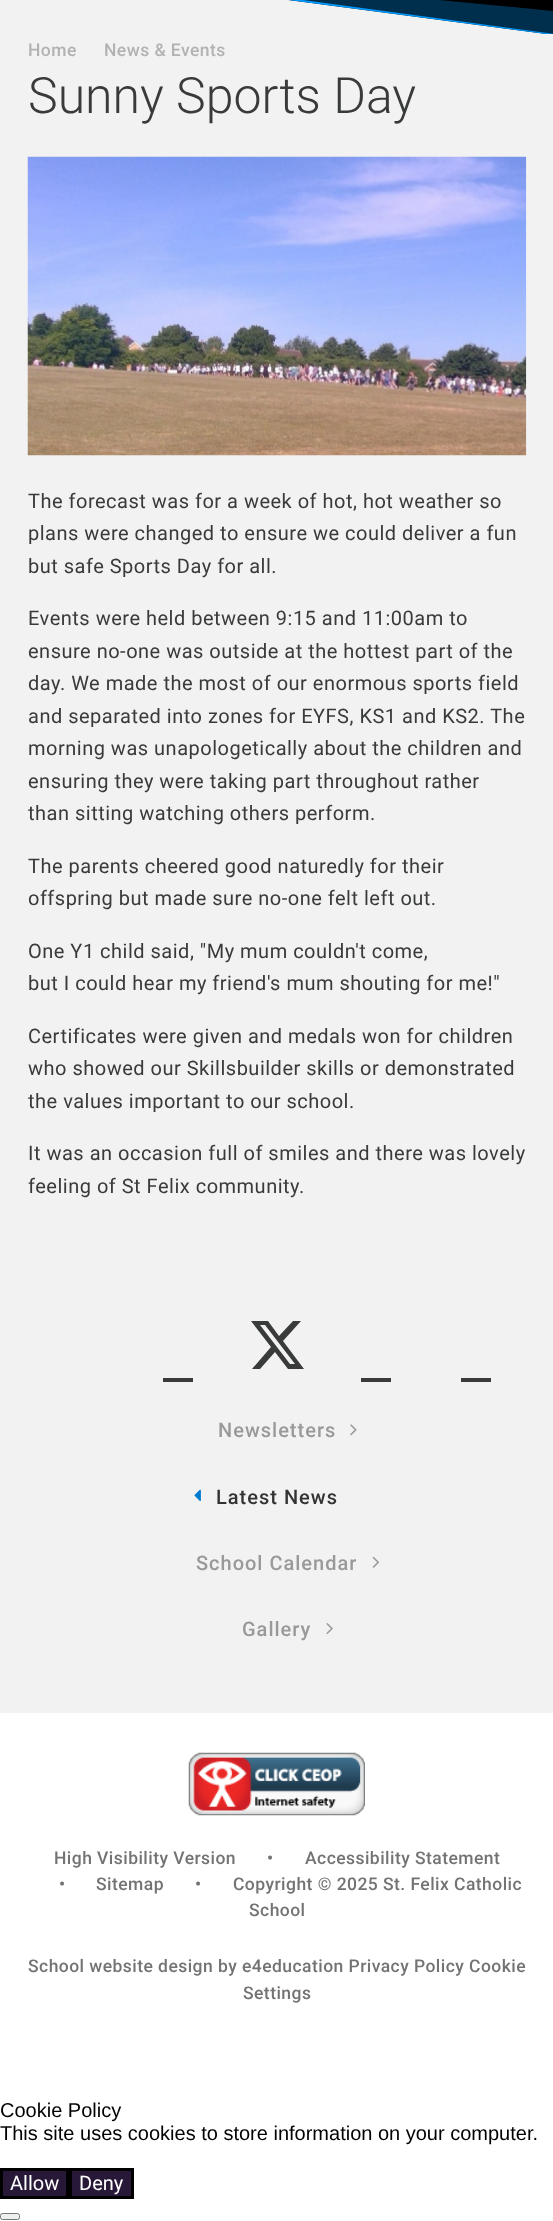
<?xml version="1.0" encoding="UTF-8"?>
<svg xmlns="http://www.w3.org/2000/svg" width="553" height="2221">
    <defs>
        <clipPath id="clip1"><rect x="0" y="0" width="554" height="34"/></clipPath>
    </defs>
    <rect width="100%" height="100%" fill="#FFFFFF"/>
    <rect x="288" y="0" width="265" height="34" fill="#000000"/>
    <g clip-path="url(#clip1)">
        <path d="M 0 -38 V 35 H 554 Z" fill="#F2F2F2" fill-rule="evenodd"/>
        <path d="M 0 -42 V -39 L 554 35 V 11 Z" fill="#0099FF" fill-opacity="0.3" fill-rule="evenodd"/>
        <path d="M 0 -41 V -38 L 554 35 V 34 Z" fill="#0099FF" fill-rule="evenodd"/>
    </g>
    <rect x="0" y="34" width="553" height="1679" fill="#F2F2F2"/>
    <text x="28" y="56" font-family="Roboto" font-size="17.5" font-weight="500" letter-spacing="0.45" fill="#B2B2B2">Home</text>
    <text x="104" y="56" font-family="Roboto" font-size="17.5" font-weight="500" letter-spacing="0.45" fill="#B2B2B2">News &amp; Events</text>
    <text x="28" y="113" font-family="Roboto" font-size="50" font-weight="300" fill="#393A3A">Sunny Sports Day</text>
    <image x="27" y="156" width="500" height="300" href="img_01.png"/>
    <text font-family="Roboto" font-size="20" letter-spacing="0.5" fill="#393A3A">
        <tspan x="28" y="508">The forecast was for a week of hot, hot weather so</tspan>
        <tspan x="28" y="540">plans were changed to ensure we could deliver a fun</tspan>
        <tspan x="28" y="573">but safe Sports Day for all.</tspan>
    </text>
    <text font-family="Roboto" font-size="20" letter-spacing="0.5" fill="#393A3A">
        <tspan x="28" y="625">Events were held between 9:15 and 11:00am to</tspan>
        <tspan x="28" y="658">ensure no-one was outside at the hottest part of the</tspan>
        <tspan x="28" y="690">day. We made the most of our enormous sports field</tspan>
        <tspan x="28" y="723">and separated into zones for EYFS, KS1 and KS2. The</tspan>
        <tspan x="28" y="755">morning was unapologetically about the children and</tspan>
        <tspan x="28" y="788">ensuring they were taking part throughout rather</tspan>
        <tspan x="28" y="820">than sitting watching others perform.</tspan>
    </text>
    <text font-family="Roboto" font-size="20" letter-spacing="0.5" fill="#393A3A">
        <tspan x="28" y="873">The parents cheered good naturedly for their</tspan>
        <tspan x="28" y="905">offspring but made sure no-one felt left out.</tspan>
    </text>
    <text font-family="Roboto" font-size="20" letter-spacing="0.5" fill="#393A3A">
        <tspan x="28" y="958">One Y1 child said, "My mum couldn't come,</tspan>
        <tspan x="28" y="990">but I could hear my friend's mum shouting for me!"</tspan>
    </text>
    <text font-family="Roboto" font-size="20" letter-spacing="0.5" fill="#393A3A">
        <tspan x="28" y="1043">Certificates were given and medals won for children</tspan>
        <tspan x="28" y="1075">who showed our Skillsbuilder skills or demonstrated</tspan>
        <tspan x="28" y="1108">the values important to our school.</tspan>
    </text>
    <text font-family="Roboto" font-size="20" letter-spacing="0.5" fill="#393A3A">
        <tspan x="28" y="1160">It was an occasion full of smiles and there was lovely</tspan>
        <tspan x="28" y="1193">feeling of St Felix community.</tspan>
    </text>
    <path d="M 293 1321 H 301 L 283 1341 L 304 1369 H 288 L 275 1352 L 260 1369 H 252 L 271 1347 L 251 1321 H 268 L 279 1336 Z M 290 1364 H 295 L 265 1325 H 260 Z" fill="#393A3A"/>
    <rect x="163" y="1378" width="30" height="4" fill="#393A3A"/>
    <rect x="361" y="1378" width="30" height="4" fill="#393A3A"/>
    <rect x="461" y="1378" width="30" height="4" fill="#393A3A"/>
    <text x="218" y="1437" font-family="Roboto" font-size="20" font-weight="500" letter-spacing="1" fill="#999999">Newsletters</text>
    <image x="350" y="1424" width="7" height="12" href="img_02.png"/>
    <image x="194" y="1489" width="7" height="12" href="img_03.png"/>
    <text x="216" y="1504" font-family="Roboto" font-size="20" font-weight="500" letter-spacing="1" fill="#333333">Latest News</text>
    <text x="196" y="1570" font-family="Roboto" font-size="20" font-weight="500" letter-spacing="1" fill="#999999">School Calendar</text>
    <image x="372" y="1556" width="7" height="12" href="img_04.png"/>
    <text x="242" y="1636" font-family="Roboto" font-size="20" font-weight="500" letter-spacing="1" fill="#999999">Gallery</text>
    <image x="326" y="1623" width="7" height="11" href="img_05.png"/>
    <image x="188" y="1752" width="177" height="64" href="img_06.png"/>
    <text x="54" y="1864" font-family="Roboto" font-size="17.5" font-weight="500" letter-spacing="0.45" fill="#737373">High Visibility Version</text>
    <text x="267" y="1864" font-family="Roboto" font-size="17.5" font-weight="500" letter-spacing="0.45" fill="#737373">•</text>
    <text x="305" y="1864" font-family="Roboto" font-size="17.5" font-weight="500" letter-spacing="0.45" fill="#737373">Accessibility Statement</text>
    <text x="59" y="1890" font-family="Roboto" font-size="17.5" font-weight="500" letter-spacing="0.45" fill="#737373">•</text>
    <text x="96" y="1890" font-family="Roboto" font-size="17.5" font-weight="500" letter-spacing="0.45" fill="#737373">Sitemap</text>
    <text x="195" y="1890" font-family="Roboto" font-size="17.5" font-weight="500" letter-spacing="0.45" fill="#737373">•</text>
    <text x="233" y="1890" font-family="Roboto" font-size="17.5" font-weight="500" letter-spacing="0.45" fill="#737373">Copyright © 2025 St. Felix Catholic</text>
    <text x="249" y="1916" font-family="Roboto" font-size="17.5" font-weight="500" letter-spacing="0.45" fill="#737373">School</text>
    <text x="28" y="1972" font-family="Roboto" font-size="17.5" font-weight="500" letter-spacing="0.45" fill="#737373">School website design by e4education Privacy Policy Cookie</text>
    <text x="243" y="1999" font-family="Roboto" font-size="17.5" font-weight="500" letter-spacing="0.45" fill="#737373">Settings</text>
    <text font-family="Liberation Sans" font-size="20" fill="#000000">
        <tspan x="0" y="2117">Cookie Policy</tspan>
        <tspan x="0" y="2140">This site uses cookies to store information on your computer.</tspan>
    </text>
    <rect x="1.5" y="2169.5" width="66" height="28" fill="#281838" stroke="#000000" stroke-width="3"/>
    <text x="10" y="2190" font-family="Roboto" font-size="20" fill="#FFFFFF">Allow</text>
    <rect x="70.5" y="2169.5" width="62" height="28" fill="#281838" stroke="#000000" stroke-width="3"/>
    <text x="79" y="2190" font-family="Roboto" font-size="20" fill="#FFFFFF">Deny</text>
    <rect x="0.5" y="2213.5" width="19" height="6" rx="2" fill="#EFEFEF" stroke="#767676"/>
</svg>
